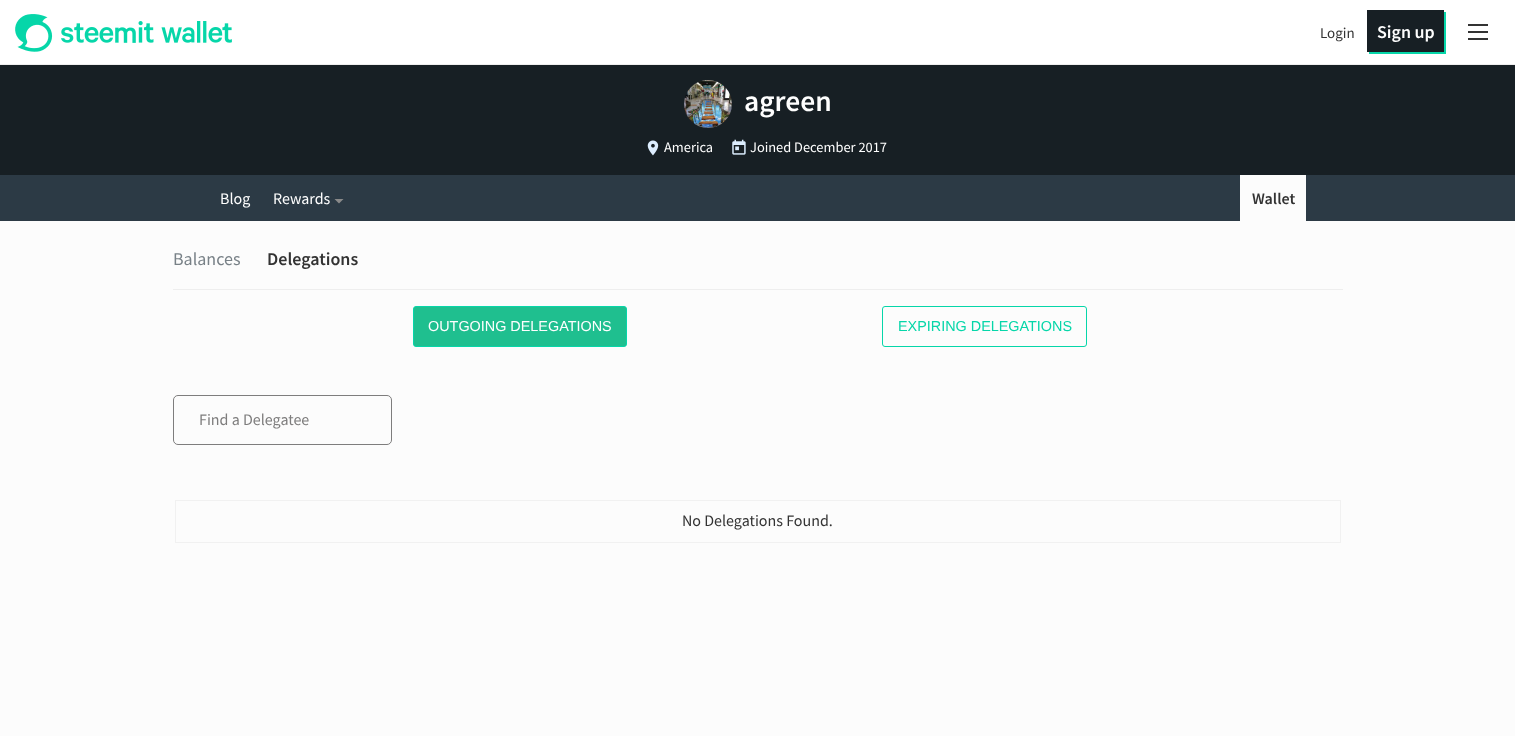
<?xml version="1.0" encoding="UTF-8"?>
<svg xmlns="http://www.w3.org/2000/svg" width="1515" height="736">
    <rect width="100%" height="100%" fill="#FCFCFC"/>
    <rect x="0" y="0" width="1515" height="64" fill="#FFFFFF"/>
    <rect x="0" y="64" width="1515" height="1" fill="#EEEEEE"/>
    <image x="15" y="14" width="217" height="38" href="img_01.png"/>
    <text x="1320" y="38" font-family="Source Sans Pro" font-size="15" fill="#333333">Login</text>
    <path d="M 1369 52 V 54 H 1446 V 12 H 1444 V 52 Z" fill="#06D6A9"/>
    <rect x="1367" y="10" width="77" height="42" fill="#171F24"/>
    <text x="1377" y="38" font-family="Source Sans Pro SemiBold" font-size="18" font-weight="600" fill="#FEFEFE">Sign up</text>
    <rect x="1468" y="38" width="20" height="2" fill="#333333"/>
    <rect x="1468" y="31" width="20" height="2" fill="#333333"/>
    <rect x="1468" y="24" width="20" height="2" fill="#333333"/>
    <rect x="0" y="65" width="1515" height="110" fill="#171F24"/>
    <image x="684" y="80" width="48" height="48" href="img_02.png"/>
    <text x="744" y="111" font-family="Source Sans Pro SemiBold" font-size="29.5" font-weight="600" fill="#FEFEFE">agreen</text>
    <image x="647" y="140" width="12" height="16" href="img_03.png"/>
    <text x="664" y="152" font-family="Source Sans Pro" font-size="14.4" fill="#FEFEFE">America</text>
    <image x="732" y="139" width="14" height="16" href="img_04.png"/>
    <text x="750" y="152" font-family="Source Sans Pro" font-size="14.4" fill="#FEFEFE">Joined December 2017</text>
    <rect x="0" y="175" width="1515" height="46" fill="#2C3A45"/>
    <text x="220" y="204" font-family="Source Sans Pro" font-size="16" fill="#FEFEFE">Blog</text>
    <text x="273" y="204" font-family="Source Sans Pro" font-size="16" fill="#FEFEFE">Rewards</text>
    <path d="M 334.5 199 L 339 203.5 L 343.5 199 Z" fill="#8A8A8A"/>
    <rect x="1240" y="175" width="66" height="46" fill="#FCFCFC"/>
    <text x="1252" y="204" font-family="Source Sans Pro SemiBold" font-size="16" font-weight="600" fill="#333333">Wallet</text>
    <rect x="173" y="289" width="1170" height="1" fill="#EEEEEE"/>
    <text x="173" y="265" font-family="Source Sans Pro" font-size="18" fill="#788187">Balances</text>
    <text x="267" y="265" font-family="Source Sans Pro SemiBold" font-size="18" font-weight="600" fill="#333333">Delegations</text>
    <rect x="413.5" y="306.5" width="213" height="40" rx="2.5" fill="#1FBF8F" stroke="#06D6A9"/>
    <text x="428" y="331" font-family="Liberation Sans" font-size="14.4" fill="#FEFEFE">OUTGOING DELEGATIONS</text>
    <rect x="882.5" y="306.5" width="204" height="40" rx="2.5" fill="none" stroke="#06D6A9"/>
    <text x="898" y="331" font-family="Liberation Sans" font-size="14.4" fill="#06D6A9">EXPIRING DELEGATIONS</text>
    <rect x="173.5" y="395.5" width="218" height="49" rx="4.5" fill="none" stroke="#7E7D7D"/>
    <text x="199" y="425" font-family="Source Sans Pro" font-size="16" fill="#7E7D7D">Find a Delegatee</text>
    <rect x="175.5" y="500.5" width="1165" height="42" fill="none" stroke="#F1F1F1"/>
    <text x="682" y="526" font-family="Source Sans Pro" font-size="16" fill="#333333">No Delegations Found.</text>
</svg>
